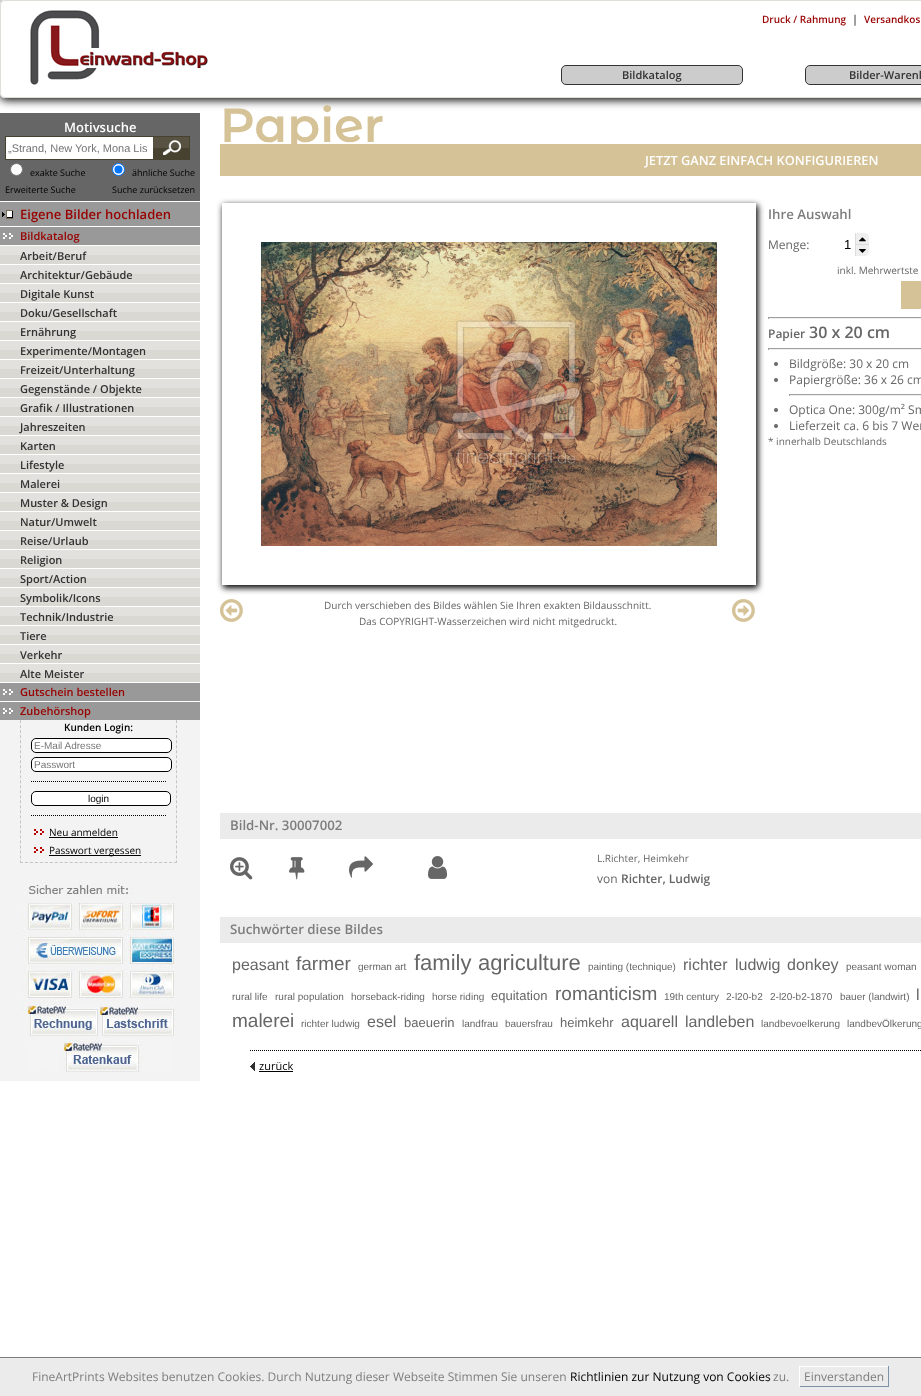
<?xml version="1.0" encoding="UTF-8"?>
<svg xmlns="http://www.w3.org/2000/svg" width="921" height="1396">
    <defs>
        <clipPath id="clip1"><path d="M 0 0 H 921 V 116 H 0 Z M 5 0 H 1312 C 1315 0 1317 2 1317 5 V 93 C 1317 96 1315 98 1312 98 H 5 C 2 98 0 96 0 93 V 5 C 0 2 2 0 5 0 Z" clip-rule="evenodd"/></clipPath>
        <filter id="blur1" x="-50%" y="-200%" width="200%" height="500%"><feGaussianBlur stdDeviation="5"/></filter>
        <filter id="blur2" x="-50%" y="-200%" width="200%" height="500%"><feGaussianBlur stdDeviation="3"/></filter>
    </defs>
    <rect width="100%" height="100%" fill="#FFFFFF"/>
    <g clip-path="url(#clip1)">
        <rect x="0" y="2" width="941" height="98" rx="5" fill="#000000" filter="url(#blur1)"/>
    </g>
    <rect x="0.5" y="0.5" width="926" height="97" rx="4.5" fill="none" stroke="#E0DED9"/>
    <image x="30" y="10" width="178" height="75" href="img_01.png"/>
    <text x="762" y="23" font-family="Open Sans" font-size="10" font-weight="600" fill="#990000">Druck / Rahmung</text>
    <text x="852" y="23" font-family="Open Sans" font-size="11" fill="#000000">|</text>
    <text x="864" y="23" font-family="Open Sans" font-size="10" font-weight="600" fill="#990000">Versandkos</text>
    <rect x="561.5" y="65.5" width="181" height="19" rx="4.5" fill="#CCCCCC" stroke="#333333"/>
    <text x="622" y="79" font-family="Open Sans" font-size="11" font-weight="600" fill="#333333">Bildkatalog</text>
    <rect x="805.5" y="65.5" width="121" height="19" rx="4.5" fill="#CCCCCC" stroke="#333333"/>
    <text x="849" y="79" font-family="Open Sans" font-size="11" font-weight="600" fill="#333333">Bilder-Warenk</text>
    <rect x="0" y="720" width="200" height="361" fill="#F3F3F3"/>
    <path d="M 176.5 129 V 863" fill="none" stroke="#C4C4C4" stroke-dasharray="3 2.01"/>
    <path d="M 20 862.5 H 177" fill="none" stroke="#C4C4C4" stroke-dasharray="3 1.97"/>
    <path d="M 20.5 129 V 863" fill="none" stroke="#C4C4C4" stroke-dasharray="3 2.01"/>
    <rect x="0" y="113" width="200" height="88" fill="#666666"/>
    <text x="64" y="132" font-family="Open Sans" font-size="13" font-weight="600" fill="#FFFFFF">Motivsuche</text>
    <rect x="6" y="137" width="147" height="22" fill="#FFFFFF"/>
    <rect x="5.5" y="136.5" width="150" height="23" fill="none" stroke="#47412F"/>
    <text x="8" y="152" font-family="Liberation Sans" font-size="11" fill="#757575">„Strand, New York, Mona Lis</text>
    <rect x="153" y="136" width="37" height="1" fill="#47412F"/>
    <rect x="153" y="137" width="36" height="11" fill="#585242"/>
    <rect x="153" y="148" width="36" height="11" fill="#47412F"/>
    <rect x="189" y="136" width="1" height="24" fill="#47412F"/>
    <rect x="153" y="159" width="37" height="1" fill="#47412F"/>
    <image x="162" y="140" width="19" height="15" href="img_02.png"/>
    <circle cx="16.5" cy="169.5" r="6" fill="#FFFFFF" stroke="#767676"/>
    <text x="30" y="176" font-family="Open Sans" font-size="9" fill="#000000">exakte Suche</text>
    <circle cx="118.5" cy="169.5" r="6" fill="#FFFFFF" stroke="#0075FF"/>
    <circle cx="118.5" cy="169.5" r="4" fill="#0075FF"/>
    <text x="132" y="176" font-family="Open Sans" font-size="9" fill="#000000">ähnliche Suche</text>
    <text x="5" y="193" font-family="Open Sans" font-size="9" fill="#000000">Erweiterte Suche</text>
    <text x="112" y="193" font-family="Open Sans" font-size="9" fill="#000000">Suche zurücksetzen</text>
    <rect x="0" y="202" width="200" height="24" fill="#999999"/>
    <rect x="20" y="201" width="157" height="1" fill="#FFFFFF"/>
    <image x="2" y="210" width="11" height="9" href="img_03.png"/>
    <text x="20" y="219" font-family="Open Sans" font-size="13" font-weight="600" fill="#990000">Eigene Bilder hochladen</text>
    <rect x="0" y="227" width="200" height="18" fill="#999999"/>
    <rect x="20" y="226" width="157" height="1" fill="#FFFFFF"/>
    <image x="3" y="233" width="10" height="6" href="img_04.png"/>
    <text x="20" y="240" font-family="Open Sans" font-size="11" font-weight="600" fill="#990000">Bildkatalog</text>
    <rect x="0" y="246" width="200" height="9" fill="#E2E1DE"/>
    <rect x="0" y="255" width="200" height="9" fill="#D9D8D3"/>
    <rect x="20" y="245" width="157" height="1" fill="#FFFFFF"/>
    <text x="20" y="260" font-family="Open Sans" font-size="11" font-weight="600" fill="#333333">Arbeit/Beruf</text>
    <rect x="0" y="265" width="200" height="9" fill="#E2E1DE"/>
    <rect x="0" y="274" width="200" height="9" fill="#D9D8D3"/>
    <rect x="20" y="264" width="157" height="1" fill="#FFFFFF"/>
    <text x="20" y="279" font-family="Open Sans" font-size="11" font-weight="600" fill="#333333">Architektur/Gebäude</text>
    <rect x="0" y="284" width="200" height="9" fill="#E2E1DE"/>
    <rect x="0" y="293" width="200" height="9" fill="#D9D8D3"/>
    <text x="20" y="298" font-family="Open Sans" font-size="11" font-weight="600" fill="#333333">Digitale Kunst</text>
    <rect x="0" y="303" width="200" height="9" fill="#E2E1DE"/>
    <rect x="0" y="312" width="200" height="9" fill="#D9D8D3"/>
    <rect x="20" y="302" width="157" height="1" fill="#FFFFFF"/>
    <text x="20" y="317" font-family="Open Sans" font-size="11" font-weight="600" fill="#333333">Doku/Gesellschaft</text>
    <rect x="0" y="322" width="200" height="9" fill="#E2E1DE"/>
    <rect x="0" y="331" width="200" height="9" fill="#D9D8D3"/>
    <rect x="20" y="321" width="157" height="1" fill="#FFFFFF"/>
    <text x="20" y="336" font-family="Open Sans" font-size="11" font-weight="600" fill="#333333">Ernährung</text>
    <rect x="0" y="341" width="200" height="9" fill="#E2E1DE"/>
    <rect x="0" y="350" width="200" height="9" fill="#D9D8D3"/>
    <rect x="20" y="340" width="157" height="1" fill="#FFFFFF"/>
    <text x="20" y="355" font-family="Open Sans" font-size="11" font-weight="600" fill="#333333">Experimente/Montagen</text>
    <rect x="0" y="360" width="200" height="9" fill="#E2E1DE"/>
    <rect x="0" y="369" width="200" height="9" fill="#D9D8D3"/>
    <rect x="20" y="359" width="157" height="1" fill="#FFFFFF"/>
    <text x="20" y="374" font-family="Open Sans" font-size="11" font-weight="600" fill="#333333">Freizeit/Unterhaltung</text>
    <rect x="0" y="379" width="200" height="9" fill="#E2E1DE"/>
    <rect x="0" y="388" width="200" height="9" fill="#D9D8D3"/>
    <text x="20" y="393" font-family="Open Sans" font-size="11" font-weight="600" fill="#333333">Gegenstände / Objekte</text>
    <rect x="0" y="398" width="200" height="9" fill="#E2E1DE"/>
    <rect x="0" y="407" width="200" height="9" fill="#D9D8D3"/>
    <rect x="20" y="397" width="157" height="1" fill="#FFFFFF"/>
    <text x="20" y="412" font-family="Open Sans" font-size="11" font-weight="600" fill="#333333">Grafik / Illustrationen</text>
    <rect x="0" y="417" width="200" height="9" fill="#E2E1DE"/>
    <rect x="0" y="426" width="200" height="9" fill="#D9D8D3"/>
    <rect x="20" y="416" width="157" height="1" fill="#FFFFFF"/>
    <text x="20" y="431" font-family="Open Sans" font-size="11" font-weight="600" fill="#333333">Jahreszeiten</text>
    <rect x="0" y="436" width="200" height="9" fill="#E2E1DE"/>
    <rect x="0" y="445" width="200" height="9" fill="#D9D8D3"/>
    <rect x="20" y="435" width="157" height="1" fill="#FFFFFF"/>
    <text x="20" y="450" font-family="Open Sans" font-size="11" font-weight="600" fill="#333333">Karten</text>
    <rect x="0" y="455" width="200" height="9" fill="#E2E1DE"/>
    <rect x="0" y="464" width="200" height="9" fill="#D9D8D3"/>
    <rect x="20" y="454" width="157" height="1" fill="#FFFFFF"/>
    <text x="20" y="469" font-family="Open Sans" font-size="11" font-weight="600" fill="#333333">Lifestyle</text>
    <rect x="0" y="474" width="200" height="9" fill="#E2E1DE"/>
    <rect x="0" y="483" width="200" height="9" fill="#D9D8D3"/>
    <text x="20" y="488" font-family="Open Sans" font-size="11" font-weight="600" fill="#333333">Malerei</text>
    <rect x="0" y="493" width="200" height="9" fill="#E2E1DE"/>
    <rect x="0" y="502" width="200" height="9" fill="#D9D8D3"/>
    <rect x="20" y="492" width="157" height="1" fill="#FFFFFF"/>
    <text x="20" y="507" font-family="Open Sans" font-size="11" font-weight="600" fill="#333333">Muster &amp; Design</text>
    <rect x="0" y="512" width="200" height="9" fill="#E2E1DE"/>
    <rect x="0" y="521" width="200" height="9" fill="#D9D8D3"/>
    <rect x="20" y="511" width="157" height="1" fill="#FFFFFF"/>
    <text x="20" y="526" font-family="Open Sans" font-size="11" font-weight="600" fill="#333333">Natur/Umwelt</text>
    <rect x="0" y="531" width="200" height="9" fill="#E2E1DE"/>
    <rect x="0" y="540" width="200" height="9" fill="#D9D8D3"/>
    <rect x="20" y="530" width="157" height="1" fill="#FFFFFF"/>
    <text x="20" y="545" font-family="Open Sans" font-size="11" font-weight="600" fill="#333333">Reise/Urlaub</text>
    <rect x="0" y="550" width="200" height="9" fill="#E2E1DE"/>
    <rect x="0" y="559" width="200" height="9" fill="#D9D8D3"/>
    <rect x="20" y="549" width="157" height="1" fill="#FFFFFF"/>
    <text x="20" y="564" font-family="Open Sans" font-size="11" font-weight="600" fill="#333333">Religion</text>
    <rect x="0" y="569" width="200" height="9" fill="#E2E1DE"/>
    <rect x="0" y="578" width="200" height="9" fill="#D9D8D3"/>
    <text x="20" y="583" font-family="Open Sans" font-size="11" font-weight="600" fill="#333333">Sport/Action</text>
    <rect x="0" y="588" width="200" height="9" fill="#E2E1DE"/>
    <rect x="0" y="597" width="200" height="9" fill="#D9D8D3"/>
    <rect x="20" y="587" width="157" height="1" fill="#FFFFFF"/>
    <text x="20" y="602" font-family="Open Sans" font-size="11" font-weight="600" fill="#333333">Symbolik/Icons</text>
    <rect x="0" y="607" width="200" height="9" fill="#E2E1DE"/>
    <rect x="0" y="616" width="200" height="9" fill="#D9D8D3"/>
    <rect x="20" y="606" width="157" height="1" fill="#FFFFFF"/>
    <text x="20" y="621" font-family="Open Sans" font-size="11" font-weight="600" fill="#333333">Technik/Industrie</text>
    <rect x="0" y="626" width="200" height="9" fill="#E2E1DE"/>
    <rect x="0" y="635" width="200" height="9" fill="#D9D8D3"/>
    <rect x="20" y="625" width="157" height="1" fill="#FFFFFF"/>
    <text x="20" y="640" font-family="Open Sans" font-size="11" font-weight="600" fill="#333333">Tiere</text>
    <rect x="0" y="645" width="200" height="9" fill="#E2E1DE"/>
    <rect x="0" y="654" width="200" height="9" fill="#D9D8D3"/>
    <text x="20" y="659" font-family="Open Sans" font-size="11" font-weight="600" fill="#333333">Verkehr</text>
    <rect x="0" y="664" width="200" height="9" fill="#E2E1DE"/>
    <rect x="0" y="673" width="200" height="9" fill="#D9D8D3"/>
    <rect x="20" y="663" width="157" height="1" fill="#FFFFFF"/>
    <text x="20" y="678" font-family="Open Sans" font-size="11" font-weight="600" fill="#333333">Alte Meister</text>
    <rect x="0" y="683" width="200" height="18" fill="#999999"/>
    <rect x="20" y="682" width="157" height="1" fill="#FFFFFF"/>
    <image x="3" y="689" width="10" height="6" href="img_04.png"/>
    <text x="20" y="696" font-family="Open Sans" font-size="11" font-weight="600" fill="#990000">Gutschein bestellen</text>
    <rect x="0" y="702" width="200" height="18" fill="#999999"/>
    <rect x="20" y="701" width="157" height="1" fill="#FFFFFF"/>
    <image x="3" y="708" width="10" height="6" href="img_04.png"/>
    <text x="20" y="715" font-family="Open Sans" font-size="11" font-weight="600" fill="#990000">Zubehörshop</text>
    <text x="64" y="731" font-family="Open Sans" font-size="10" font-weight="600" fill="#000000">Kunden Login:</text>
    <rect x="31.5" y="738.5" width="140" height="14" rx="4.5" fill="#FFFFFF" stroke="#000000"/>
    <text x="34" y="749" font-family="Liberation Sans" font-size="10" fill="#757575">E-Mail Adresse</text>
    <rect x="31.5" y="757.5" width="140" height="14" rx="4.5" fill="#FFFFFF" stroke="#000000"/>
    <text x="34" y="768" font-family="Liberation Sans" font-size="10" fill="#757575">Passwort</text>
    <path d="M 31 781.5 H 166" fill="none" stroke="#000000" stroke-dasharray="1 1"/>
    <rect x="31.5" y="791.5" width="139" height="14" rx="4.5" fill="#FFFFFF" stroke="#000000"/>
    <text x="88" y="802" font-family="Liberation Sans" font-size="10" fill="#000000">login</text>
    <path d="M 31 815.5 H 166" fill="none" stroke="#000000" stroke-dasharray="1 1"/>
    <image x="34" y="829" width="10" height="6" href="img_05.png"/>
    <text x="49" y="836" font-family="Open Sans" font-size="10" fill="#000000">Neu anmelden</text>
    <rect x="49" y="837" width="69" height="1" fill="#000000"/>
    <image x="34" y="847" width="10" height="6" href="img_05.png"/>
    <rect x="49" y="855" width="92" height="1" fill="#000000"/>
    <text x="49" y="854" font-family="Open Sans" font-size="10" fill="#000000">Passwort vergessen</text>
    <image x="22" y="879" width="152" height="193" href="img_06.png"/>
    <rect x="220" y="144" width="701" height="32" fill="#D5C297"/>
    <text x="220" y="142" font-family="Montserrat Alternates" font-size="48" font-weight="600" fill="#D5C297">Papier</text>
    <text x="645" y="165" font-family="Open Sans" font-size="12.75" font-weight="600" fill="#FFFFFF">JETZT GANZ EINFACH KONFIGURIEREN</text>
    <text x="768" y="219" font-family="Open Sans" font-size="13.25" font-weight="600" fill="#7D7D7D">Ihre Auswahl</text>
    <text x="768" y="249" font-family="Open Sans" font-size="12" fill="#666666">Menge:</text>
    <rect x="855" y="233" width="1" height="23" fill="#DCDCDC"/>
    <text x="844" y="249" font-family="Liberation Sans" font-size="13" fill="#000000">1</text>
    <path d="M 856 233 H 865 C 867 233 869 235 869 237 V 244 H 856 Z" fill="#EFEFEF"/>
    <image x="859" y="237" width="7" height="5" href="img_07.png"/>
    <path d="M 856 244 H 869 V 252 C 869 254 867 256 865 256 H 856 Z" fill="#EFEFEF"/>
    <rect x="856" y="244" width="13" height="1" fill="#DCDCDC"/>
    <image x="859" y="249" width="7" height="4" href="img_08.png"/>
    <text x="837" y="274" font-family="Open Sans" font-size="10" fill="#666666">inkl. Mehrwertste</text>
    <rect x="901" y="281" width="20" height="28" fill="#D5C297"/>
    <rect x="768" y="317" width="153" height="1" fill="#9F9F9F"/>
    <rect x="768" y="318" width="153" height="1" fill="#EEEEEE"/>
    <rect x="768" y="317" width="1" height="2" fill="#9F9F9F"/>
    <text x="768" y="338" font-family="Open Sans" font-size="12" font-weight="600" fill="#666666">Papier</text>
    <text x="809" y="338" font-family="Open Sans" font-size="16" font-weight="600" fill="#666666">30 x 20 cm</text>
    <rect x="768" y="348" width="153" height="1" fill="#9F9F9F"/>
    <rect x="768" y="349" width="153" height="1" fill="#EEEEEE"/>
    <rect x="768" y="348" width="1" height="2" fill="#9F9F9F"/>
    <circle cx="776" cy="364" r="2" fill="#666666"/>
    <text x="789" y="368" font-family="Open Sans" font-size="12" fill="#666666">Bildgröße: 30 x 20 cm</text>
    <circle cx="776" cy="380" r="2" fill="#666666"/>
    <text x="789" y="384" font-family="Open Sans" font-size="12" fill="#666666">Papiergröße: 36 x 26 cm</text>
    <rect x="789" y="394" width="132" height="1" fill="#9F9F9F"/>
    <rect x="789" y="395" width="132" height="1" fill="#EEEEEE"/>
    <rect x="789" y="394" width="1" height="2" fill="#9F9F9F"/>
    <circle cx="776" cy="410" r="2" fill="#666666"/>
    <text x="789" y="414" font-family="Open Sans" font-size="12" fill="#666666">Optica One: 300g/m² Sm</text>
    <circle cx="776" cy="426" r="2" fill="#666666"/>
    <text x="789" y="430" font-family="Open Sans" font-size="12" fill="#666666">Lieferzeit ca. 6 bis 7 Wer</text>
    <text x="768" y="445" font-family="Open Sans" font-size="10" fill="#666666">* innerhalb Deutschlands</text>
    <rect x="223" y="205" width="535" height="383" rx="1" fill="#000000" filter="url(#blur2)"/>
    <rect x="241.5" y="222.5" width="495" height="343" fill="none" stroke="#FFFFFF" stroke-width="39"/>
    <image x="261" y="242" width="456" height="304" href="img_09.png"/>
    <image x="220" y="599" width="23" height="23" href="img_10.png"/>
    <text x="324" y="609" font-family="Open Sans" font-size="10" fill="#666666">Durch verschieben des Bildes wählen Sie Ihren exakten Bildausschnitt.</text>
    <text x="359" y="625" font-family="Open Sans" font-size="10" fill="#666666">Das COPYRIGHT-Wasserzeichen wird nicht mitgedruckt.</text>
    <image x="732" y="599" width="23" height="23" href="img_11.png"/>
    <rect x="220" y="813" width="701" height="26" fill="#EBEBEB"/>
    <text x="230" y="830" font-family="Open Sans" font-size="13.25" font-weight="600" fill="#7D7D7D">Bild-Nr. 30007002</text>
    <image x="230" y="857" width="23" height="23" href="img_12.png"/>
    <image x="289" y="857" width="16" height="23" href="img_13.png"/>
    <image x="349" y="856" width="24" height="22" href="img_14.png"/>
    <image x="428" y="856" width="19" height="23" href="img_15.png"/>
    <text x="597" y="862" font-family="Open Sans" font-size="10" fill="#666666">L.Richter, Heimkehr</text>
    <text x="597" y="883" font-family="Open Sans" font-size="12" fill="#666666">von</text>
    <text x="621" y="883" font-family="Open Sans" font-size="12" font-weight="600" fill="#666666">Richter, Ludwig</text>
    <rect x="220" y="917" width="701" height="26" fill="#EBEBEB"/>
    <text x="230" y="934" font-family="Open Sans" font-size="13.25" font-weight="600" fill="#7D7D7D">Suchwörter diese Bildes</text>
    <text x="232" y="970" font-family="Liberation Sans" font-size="16" fill="#666666">peasant</text>
    <text x="296" y="970" font-family="Liberation Sans" font-size="19" fill="#666666">farmer</text>
    <text x="358" y="970" font-family="Liberation Sans" font-size="10" fill="#666666">german art</text>
    <text x="414" y="970" font-family="Liberation Sans" font-size="22" fill="#666666">family</text>
    <text x="478" y="970" font-family="Liberation Sans" font-size="22" fill="#666666">agriculture</text>
    <text x="588" y="970" font-family="Liberation Sans" font-size="10" fill="#666666">painting (technique)</text>
    <text x="683" y="970" font-family="Liberation Sans" font-size="16" fill="#666666">richter</text>
    <text x="735" y="970" font-family="Liberation Sans" font-size="16" fill="#666666">ludwig</text>
    <text x="787" y="970" font-family="Liberation Sans" font-size="16" fill="#666666">donkey</text>
    <text x="846" y="970" font-family="Liberation Sans" font-size="10" fill="#666666">peasant woman</text>
    <text x="232" y="1000" font-family="Liberation Sans" font-size="10" fill="#666666">rural life</text>
    <text x="275" y="1000" font-family="Liberation Sans" font-size="10" fill="#666666">rural population</text>
    <text x="351" y="1000" font-family="Liberation Sans" font-size="10" fill="#666666">horseback-riding</text>
    <text x="432" y="1000" font-family="Liberation Sans" font-size="10" fill="#666666">horse riding</text>
    <text x="491" y="1000" font-family="Liberation Sans" font-size="13" fill="#666666">equitation</text>
    <text x="555" y="1000" font-family="Liberation Sans" font-size="19" fill="#666666">romanticism</text>
    <text x="664" y="1000" font-family="Liberation Sans" font-size="10" fill="#666666">19th century</text>
    <text x="726" y="1000" font-family="Liberation Sans" font-size="10" fill="#666666">2-l20-b2</text>
    <text x="770" y="1000" font-family="Liberation Sans" font-size="10" fill="#666666">2-l20-b2-1870</text>
    <text x="840" y="1000" font-family="Liberation Sans" font-size="10" fill="#666666">bauer (landwirt)</text>
    <text x="916" y="1000" font-family="Liberation Sans" font-size="16" fill="#666666">l</text>
    <text x="232" y="1027" font-family="Liberation Sans" font-size="19" fill="#666666">malerei</text>
    <text x="301" y="1027" font-family="Liberation Sans" font-size="10" fill="#666666">richter ludwig</text>
    <text x="367" y="1027" font-family="Liberation Sans" font-size="16" fill="#666666">esel</text>
    <text x="404" y="1027" font-family="Liberation Sans" font-size="13" fill="#666666">baeuerin</text>
    <text x="462" y="1027" font-family="Liberation Sans" font-size="10" fill="#666666">landfrau</text>
    <text x="505" y="1027" font-family="Liberation Sans" font-size="10" fill="#666666">bauersfrau</text>
    <text x="560" y="1027" font-family="Liberation Sans" font-size="13" fill="#666666">heimkehr</text>
    <text x="621" y="1027" font-family="Liberation Sans" font-size="16" fill="#666666">aquarell</text>
    <text x="685" y="1027" font-family="Liberation Sans" font-size="16" fill="#666666">landleben</text>
    <text x="761" y="1027" font-family="Liberation Sans" font-size="10" fill="#666666">landbevoelkerung</text>
    <text x="847" y="1027" font-family="Liberation Sans" font-size="10" fill="#666666">landbevÖlkerung</text>
    <path d="M 250 1050.5 H 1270" fill="none" stroke="#000000" stroke-dasharray="1 1"/>
    <image x="250" y="1062" width="5" height="9" href="img_16.png"/>
    <text x="259" y="1070" font-family="Open Sans" font-size="11" fill="#000000">zurück</text>
    <rect x="259" y="1071" width="34" height="1" fill="#000000"/>
    <rect x="0" y="1358" width="921" height="38" fill="#EBEBEB"/>
    <rect x="799" y="1366" width="90" height="1" fill="#FFFFFF"/>
    <rect x="888" y="1366" width="1" height="21" fill="#7B92A9"/>
    <rect x="799" y="1386" width="90" height="1" fill="#7B92A9"/>
    <rect x="799" y="1366" width="1" height="21" fill="#FFFFFF"/>
    <rect x="-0.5" y="1357.5" width="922" height="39" fill="none" stroke="#7D7D7D"/>
    <text x="32" y="1381" font-family="Open Sans" font-size="12" fill="#7D7D7D">FineArtPrints Websites benutzen Cookies. Durch Nutzung dieser Webseite Stimmen Sie unseren</text>
    <text x="570" y="1381" font-family="Open Sans" font-size="12" fill="#000000">Richtlinien zur Nutzung von Cookies</text>
    <text x="773" y="1381" font-family="Open Sans" font-size="12" fill="#7D7D7D">zu.</text>
    <text x="804" y="1381" font-family="Open Sans" font-size="12" fill="#7D7D7D">Einverstanden</text>
</svg>
